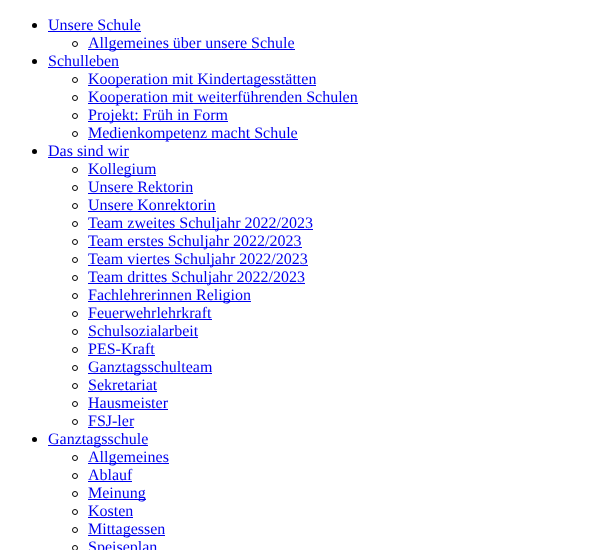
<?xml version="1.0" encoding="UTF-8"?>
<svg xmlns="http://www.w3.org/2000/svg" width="590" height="550">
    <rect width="100%" height="100%" fill="#FFFFFF"/>
    <circle cx="34.5" cy="25.5" r="2.5" fill="#000000"/>
    <text x="48" y="30" font-family="Liberation Serif" font-size="16" fill="#0000EE">Unsere Schule</text>
    <rect x="48" y="31" width="93" height="1" fill="#0000EE"/>
    <circle cx="75" cy="44" r="2.5" fill="none" stroke="#000000"/>
    <rect x="88" y="49" width="207" height="1" fill="#0000EE"/>
    <text x="88" y="48" font-family="Liberation Serif" font-size="16" fill="#0000EE">Allgemeines über unsere Schule</text>
    <circle cx="34.5" cy="61.5" r="2.5" fill="#000000"/>
    <text x="48" y="66" font-family="Liberation Serif" font-size="16" fill="#0000EE">Schulleben</text>
    <rect x="48" y="67" width="71" height="1" fill="#0000EE"/>
    <circle cx="75" cy="80" r="2.5" fill="none" stroke="#000000"/>
    <rect x="88" y="85" width="228" height="1" fill="#0000EE"/>
    <text x="88" y="84" font-family="Liberation Serif" font-size="16" fill="#0000EE">Kooperation mit Kindertagesstätten</text>
    <circle cx="75" cy="98" r="2.5" fill="none" stroke="#000000"/>
    <rect x="88" y="103" width="270" height="1" fill="#0000EE"/>
    <text x="88" y="102" font-family="Liberation Serif" font-size="16" fill="#0000EE">Kooperation mit weiterführenden Schulen</text>
    <circle cx="75" cy="116" r="2.5" fill="none" stroke="#000000"/>
    <rect x="88" y="121" width="140" height="1" fill="#0000EE"/>
    <text x="88" y="120" font-family="Liberation Serif" font-size="16" fill="#0000EE">Projekt: Früh in Form</text>
    <circle cx="75" cy="134" r="2.5" fill="none" stroke="#000000"/>
    <rect x="88" y="139" width="210" height="1" fill="#0000EE"/>
    <text x="88" y="138" font-family="Liberation Serif" font-size="16" fill="#0000EE">Medienkompetenz macht Schule</text>
    <circle cx="34.5" cy="151.5" r="2.5" fill="#000000"/>
    <text x="48" y="156" font-family="Liberation Serif" font-size="16" fill="#0000EE">Das sind wir</text>
    <rect x="48" y="157" width="81" height="1" fill="#0000EE"/>
    <circle cx="75" cy="170" r="2.5" fill="none" stroke="#000000"/>
    <rect x="88" y="175" width="68" height="1" fill="#0000EE"/>
    <text x="88" y="174" font-family="Liberation Serif" font-size="16" fill="#0000EE">Kollegium</text>
    <circle cx="75" cy="188" r="2.5" fill="none" stroke="#000000"/>
    <text x="88" y="192" font-family="Liberation Serif" font-size="16" fill="#0000EE">Unsere Rektorin</text>
    <rect x="88" y="193" width="105" height="1" fill="#0000EE"/>
    <circle cx="75" cy="206" r="2.5" fill="none" stroke="#000000"/>
    <text x="88" y="210" font-family="Liberation Serif" font-size="16" fill="#0000EE">Unsere Konrektorin</text>
    <rect x="88" y="211" width="128" height="1" fill="#0000EE"/>
    <circle cx="75" cy="224" r="2.5" fill="none" stroke="#000000"/>
    <rect x="88" y="229" width="225" height="1" fill="#0000EE"/>
    <text x="88" y="228" font-family="Liberation Serif" font-size="16" fill="#0000EE">Team zweites Schuljahr 2022/2023</text>
    <circle cx="75" cy="242" r="2.5" fill="none" stroke="#000000"/>
    <rect x="88" y="247" width="214" height="1" fill="#0000EE"/>
    <text x="88" y="246" font-family="Liberation Serif" font-size="16" fill="#0000EE">Team erstes Schuljahr 2022/2023</text>
    <circle cx="75" cy="260" r="2.5" fill="none" stroke="#000000"/>
    <rect x="88" y="265" width="220" height="1" fill="#0000EE"/>
    <text x="88" y="264" font-family="Liberation Serif" font-size="16" fill="#0000EE">Team viertes Schuljahr 2022/2023</text>
    <circle cx="75" cy="278" r="2.5" fill="none" stroke="#000000"/>
    <rect x="88" y="283" width="217" height="1" fill="#0000EE"/>
    <text x="88" y="282" font-family="Liberation Serif" font-size="16" fill="#0000EE">Team drittes Schuljahr 2022/2023</text>
    <circle cx="75" cy="296" r="2.5" fill="none" stroke="#000000"/>
    <rect x="88" y="301" width="163" height="1" fill="#0000EE"/>
    <text x="88" y="300" font-family="Liberation Serif" font-size="16" fill="#0000EE">Fachlehrerinnen Religion</text>
    <circle cx="75" cy="314" r="2.5" fill="none" stroke="#000000"/>
    <text x="88" y="318" font-family="Liberation Serif" font-size="16" fill="#0000EE">Feuerwehrlehrkraft</text>
    <rect x="88" y="319" width="124" height="1" fill="#0000EE"/>
    <circle cx="75" cy="332" r="2.5" fill="none" stroke="#000000"/>
    <text x="88" y="336" font-family="Liberation Serif" font-size="16" fill="#0000EE">Schulsozialarbeit</text>
    <rect x="88" y="337" width="110" height="1" fill="#0000EE"/>
    <circle cx="75" cy="350" r="2.5" fill="none" stroke="#000000"/>
    <text x="88" y="354" font-family="Liberation Serif" font-size="16" fill="#0000EE">PES-Kraft</text>
    <rect x="88" y="355" width="67" height="1" fill="#0000EE"/>
    <circle cx="75" cy="368" r="2.5" fill="none" stroke="#000000"/>
    <rect x="88" y="373" width="124" height="1" fill="#0000EE"/>
    <text x="88" y="372" font-family="Liberation Serif" font-size="16" fill="#0000EE">Ganztagsschulteam</text>
    <circle cx="75" cy="386" r="2.5" fill="none" stroke="#000000"/>
    <text x="88" y="390" font-family="Liberation Serif" font-size="16" fill="#0000EE">Sekretariat</text>
    <rect x="88" y="391" width="69" height="1" fill="#0000EE"/>
    <circle cx="75" cy="404" r="2.5" fill="none" stroke="#000000"/>
    <text x="88" y="408" font-family="Liberation Serif" font-size="16" fill="#0000EE">Hausmeister</text>
    <rect x="88" y="409" width="80" height="1" fill="#0000EE"/>
    <circle cx="75" cy="422" r="2.5" fill="none" stroke="#000000"/>
    <text x="88" y="426" font-family="Liberation Serif" font-size="16" fill="#0000EE">FSJ-ler</text>
    <rect x="88" y="427" width="46" height="1" fill="#0000EE"/>
    <circle cx="34.5" cy="439.5" r="2.5" fill="#000000"/>
    <rect x="48" y="445" width="100" height="1" fill="#0000EE"/>
    <text x="48" y="444" font-family="Liberation Serif" font-size="16" fill="#0000EE">Ganztagsschule</text>
    <circle cx="75" cy="458" r="2.5" fill="none" stroke="#000000"/>
    <rect x="88" y="463" width="81" height="1" fill="#0000EE"/>
    <text x="88" y="462" font-family="Liberation Serif" font-size="16" fill="#0000EE">Allgemeines</text>
    <circle cx="75" cy="476" r="2.5" fill="none" stroke="#000000"/>
    <text x="88" y="480" font-family="Liberation Serif" font-size="16" fill="#0000EE">Ablauf</text>
    <rect x="88" y="481" width="44" height="1" fill="#0000EE"/>
    <circle cx="75" cy="494" r="2.5" fill="none" stroke="#000000"/>
    <rect x="88" y="499" width="58" height="1" fill="#0000EE"/>
    <text x="88" y="498" font-family="Liberation Serif" font-size="16" fill="#0000EE">Meinung</text>
    <circle cx="75" cy="512" r="2.5" fill="none" stroke="#000000"/>
    <text x="88" y="516" font-family="Liberation Serif" font-size="16" fill="#0000EE">Kosten</text>
    <rect x="88" y="517" width="45" height="1" fill="#0000EE"/>
    <circle cx="75" cy="530" r="2.5" fill="none" stroke="#000000"/>
    <rect x="88" y="535" width="77" height="1" fill="#0000EE"/>
    <text x="88" y="534" font-family="Liberation Serif" font-size="16" fill="#0000EE">Mittagessen</text>
    <circle cx="75" cy="548" r="2.5" fill="none" stroke="#000000"/>
    <text x="88" y="552" font-family="Liberation Serif" font-size="16" fill="#0000EE">Speiseplan</text>
</svg>
